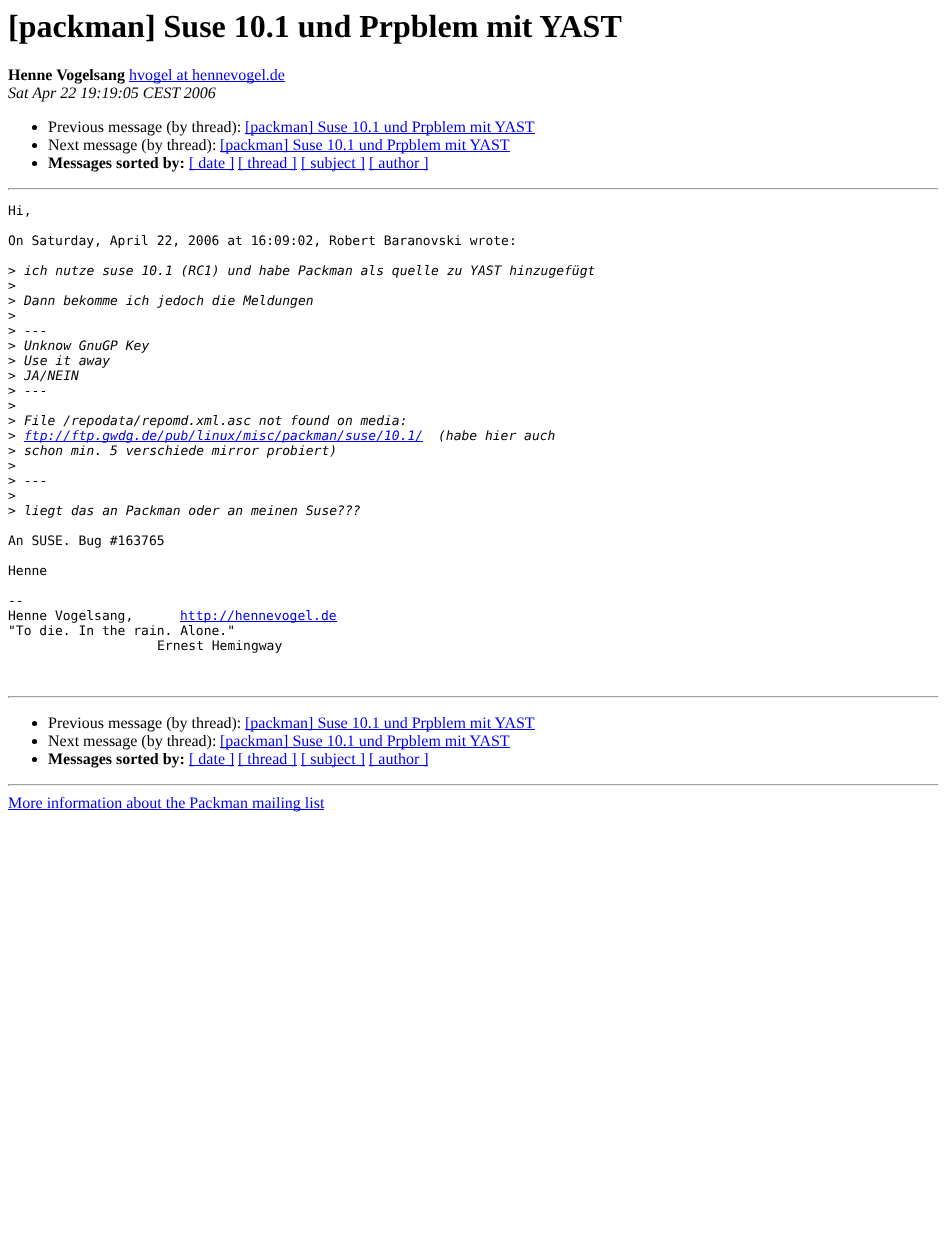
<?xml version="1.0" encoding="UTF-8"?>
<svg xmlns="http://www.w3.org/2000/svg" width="947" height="1238">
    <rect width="100%" height="100%" fill="#FFFFFF"/>
    <text x="8" y="37" font-family="Liberation Serif" font-size="32" font-weight="700" fill="#000000">[packman] Suse 10.1 und Prpblem mit YAST</text>
    <text x="8" y="80" font-family="Liberation Serif" font-size="16" font-weight="700" fill="#000000">Henne Vogelsang</text>
    <rect x="129" y="81" width="156" height="1" fill="#0000EE"/>
    <text x="129" y="80" font-family="Liberation Serif" font-size="16" fill="#0000EE">hvogel at hennevogel.de</text>
    <text x="8" y="98" font-family="Liberation Serif" font-size="16" font-style="italic" fill="#000000">Sat Apr 22 19:19:05 CEST 2006</text>
    <circle cx="34.5" cy="127.5" r="2.5" fill="#000000"/>
    <text x="48" y="132" font-family="Liberation Serif" font-size="16" fill="#000000">Previous message (by thread):</text>
    <rect x="245" y="133" width="290" height="1" fill="#0000EE"/>
    <text x="245" y="132" font-family="Liberation Serif" font-size="16" fill="#0000EE">[packman] Suse 10.1 und Prpblem mit YAST</text>
    <circle cx="34.5" cy="145.5" r="2.5" fill="#000000"/>
    <text x="48" y="150" font-family="Liberation Serif" font-size="16" fill="#000000">Next message (by thread):</text>
    <rect x="220" y="151" width="290" height="1" fill="#0000EE"/>
    <text x="220" y="150" font-family="Liberation Serif" font-size="16" fill="#0000EE">[packman] Suse 10.1 und Prpblem mit YAST</text>
    <circle cx="34.5" cy="163.5" r="2.5" fill="#000000"/>
    <text x="48" y="168" font-family="Liberation Serif" font-size="16" font-weight="700" fill="#000000">Messages sorted by:</text>
    <rect x="189" y="169" width="45" height="1" fill="#0000EE"/>
    <text x="189" y="168" font-family="Liberation Serif" font-size="16" fill="#0000EE">[ date ]</text>
    <rect x="238" y="169" width="59" height="1" fill="#0000EE"/>
    <text x="238" y="168" font-family="Liberation Serif" font-size="16" fill="#0000EE">[ thread ]</text>
    <rect x="301" y="169" width="64" height="1" fill="#0000EE"/>
    <text x="301" y="168" font-family="Liberation Serif" font-size="16" fill="#0000EE">[ subject ]</text>
    <rect x="369" y="169" width="59" height="1" fill="#0000EE"/>
    <text x="369" y="168" font-family="Liberation Serif" font-size="16" fill="#0000EE">[ author ]</text>
    <rect x="8" y="188" width="931" height="1" fill="#9F9F9F"/>
    <rect x="938" y="188" width="1" height="2" fill="#EEEEEE"/>
    <rect x="8" y="189" width="931" height="1" fill="#EEEEEE"/>
    <rect x="8" y="188" width="1" height="2" fill="#9F9F9F"/>
    <text x="8" y="215" font-family="DejaVu Sans Mono" font-size="13" fill="#000000">Hi,</text>
    <text x="8" y="245" font-family="DejaVu Sans Mono" font-size="13" fill="#000000">On Saturday, April 22, 2006 at 16:09:02, Robert Baranovski wrote:</text>
    <text x="8" y="275" font-family="DejaVu Sans Mono" font-size="13" fill="#000000">&gt;</text>
    <text x="24" y="275" font-family="DejaVu Sans Mono" font-size="13" font-style="italic" fill="#000000">ich nutze suse 10.1 (RC1) und habe Packman als quelle zu YAST hinzugefügt</text>
    <text font-family="DejaVu Sans Mono" font-size="13" fill="#000000">
        <tspan x="8" y="290">&gt;</tspan>
        <tspan x="8" y="305">&gt;</tspan>
    </text>
    <text x="24" y="305" font-family="DejaVu Sans Mono" font-size="13" font-style="italic" fill="#000000">Dann bekomme ich jedoch die Meldungen</text>
    <text font-family="DejaVu Sans Mono" font-size="13" fill="#000000">
        <tspan x="8" y="320">&gt;</tspan>
        <tspan x="8" y="335">&gt;</tspan>
    </text>
    <text x="24" y="335" font-family="DejaVu Sans Mono" font-size="13" font-style="italic" fill="#000000">---</text>
    <text x="8" y="350" font-family="DejaVu Sans Mono" font-size="13" fill="#000000">&gt;</text>
    <text x="24" y="350" font-family="DejaVu Sans Mono" font-size="13" font-style="italic" fill="#000000">Unknow GnuGP Key</text>
    <text x="8" y="365" font-family="DejaVu Sans Mono" font-size="13" fill="#000000">&gt;</text>
    <text x="24" y="365" font-family="DejaVu Sans Mono" font-size="13" font-style="italic" fill="#000000">Use it away</text>
    <text x="8" y="380" font-family="DejaVu Sans Mono" font-size="13" fill="#000000">&gt;</text>
    <text x="24" y="380" font-family="DejaVu Sans Mono" font-size="13" font-style="italic" fill="#000000">JA/NEIN</text>
    <text x="8" y="395" font-family="DejaVu Sans Mono" font-size="13" fill="#000000">&gt;</text>
    <text x="24" y="395" font-family="DejaVu Sans Mono" font-size="13" font-style="italic" fill="#000000">---</text>
    <text font-family="DejaVu Sans Mono" font-size="13" fill="#000000">
        <tspan x="8" y="410">&gt;</tspan>
        <tspan x="8" y="425">&gt;</tspan>
    </text>
    <text x="24" y="425" font-family="DejaVu Sans Mono" font-size="13" font-style="italic" fill="#000000">File /repodata/repomd.xml.asc not found on media:</text>
    <text x="8" y="440" font-family="DejaVu Sans Mono" font-size="13" fill="#000000">&gt;</text>
    <rect x="24" y="441" width="399" height="1" fill="#0000EE"/>
    <text x="24" y="440" font-family="DejaVu Sans Mono" font-size="13" font-style="italic" fill="#0000EE">ftp://ftp.gwdg.de/pub/linux/misc/packman/suse/10.1/</text>
    <text x="438" y="440" font-family="DejaVu Sans Mono" font-size="13" font-style="italic" fill="#000000">(habe hier auch</text>
    <text x="8" y="455" font-family="DejaVu Sans Mono" font-size="13" fill="#000000">&gt;</text>
    <text x="24" y="455" font-family="DejaVu Sans Mono" font-size="13" font-style="italic" fill="#000000">schon min. 5 verschiede mirror probiert)</text>
    <text font-family="DejaVu Sans Mono" font-size="13" fill="#000000">
        <tspan x="8" y="470">&gt;</tspan>
        <tspan x="8" y="485">&gt;</tspan>
    </text>
    <text x="24" y="485" font-family="DejaVu Sans Mono" font-size="13" font-style="italic" fill="#000000">---</text>
    <text font-family="DejaVu Sans Mono" font-size="13" fill="#000000">
        <tspan x="8" y="500">&gt;</tspan>
        <tspan x="8" y="515">&gt;</tspan>
    </text>
    <text x="24" y="515" font-family="DejaVu Sans Mono" font-size="13" font-style="italic" fill="#000000">liegt das an Packman oder an meinen Suse???</text>
    <text x="8" y="545" font-family="DejaVu Sans Mono" font-size="13" fill="#000000">An SUSE. Bug #163765</text>
    <text x="8" y="575" font-family="DejaVu Sans Mono" font-size="13" fill="#000000">Henne</text>
    <text font-family="DejaVu Sans Mono" font-size="13" fill="#000000">
        <tspan x="8" y="605">--</tspan>
        <tspan x="8" y="620">Henne Vogelsang,</tspan>
    </text>
    <rect x="180" y="621" width="157" height="1" fill="#0000EE"/>
    <text x="180" y="620" font-family="DejaVu Sans Mono" font-size="13" fill="#0000EE">http://hennevogel.de</text>
    <text x="8" y="635" font-family="DejaVu Sans Mono" font-size="13" fill="#000000">"To die. In the rain. Alone."</text>
    <text x="157" y="650" font-family="DejaVu Sans Mono" font-size="13" fill="#000000">Ernest Hemingway</text>
    <rect x="8" y="696" width="931" height="1" fill="#9F9F9F"/>
    <rect x="938" y="696" width="1" height="2" fill="#EEEEEE"/>
    <rect x="8" y="697" width="931" height="1" fill="#EEEEEE"/>
    <rect x="8" y="696" width="1" height="2" fill="#9F9F9F"/>
    <circle cx="34.5" cy="723.5" r="2.5" fill="#000000"/>
    <text x="48" y="728" font-family="Liberation Serif" font-size="16" fill="#000000">Previous message (by thread):</text>
    <rect x="245" y="729" width="290" height="1" fill="#0000EE"/>
    <text x="245" y="728" font-family="Liberation Serif" font-size="16" fill="#0000EE">[packman] Suse 10.1 und Prpblem mit YAST</text>
    <circle cx="34.5" cy="741.5" r="2.5" fill="#000000"/>
    <text x="48" y="746" font-family="Liberation Serif" font-size="16" fill="#000000">Next message (by thread):</text>
    <rect x="220" y="747" width="290" height="1" fill="#0000EE"/>
    <text x="220" y="746" font-family="Liberation Serif" font-size="16" fill="#0000EE">[packman] Suse 10.1 und Prpblem mit YAST</text>
    <circle cx="34.5" cy="759.5" r="2.5" fill="#000000"/>
    <text x="48" y="764" font-family="Liberation Serif" font-size="16" font-weight="700" fill="#000000">Messages sorted by:</text>
    <rect x="189" y="765" width="45" height="1" fill="#0000EE"/>
    <text x="189" y="764" font-family="Liberation Serif" font-size="16" fill="#0000EE">[ date ]</text>
    <rect x="238" y="765" width="59" height="1" fill="#0000EE"/>
    <text x="238" y="764" font-family="Liberation Serif" font-size="16" fill="#0000EE">[ thread ]</text>
    <rect x="301" y="765" width="64" height="1" fill="#0000EE"/>
    <text x="301" y="764" font-family="Liberation Serif" font-size="16" fill="#0000EE">[ subject ]</text>
    <rect x="369" y="765" width="59" height="1" fill="#0000EE"/>
    <text x="369" y="764" font-family="Liberation Serif" font-size="16" fill="#0000EE">[ author ]</text>
    <rect x="8" y="784" width="931" height="1" fill="#9F9F9F"/>
    <rect x="938" y="784" width="1" height="2" fill="#EEEEEE"/>
    <rect x="8" y="785" width="931" height="1" fill="#EEEEEE"/>
    <rect x="8" y="784" width="1" height="2" fill="#9F9F9F"/>
    <rect x="8" y="809" width="316" height="1" fill="#0000EE"/>
    <text x="8" y="808" font-family="Liberation Serif" font-size="16" fill="#0000EE">More information about the Packman mailing list</text>
</svg>
